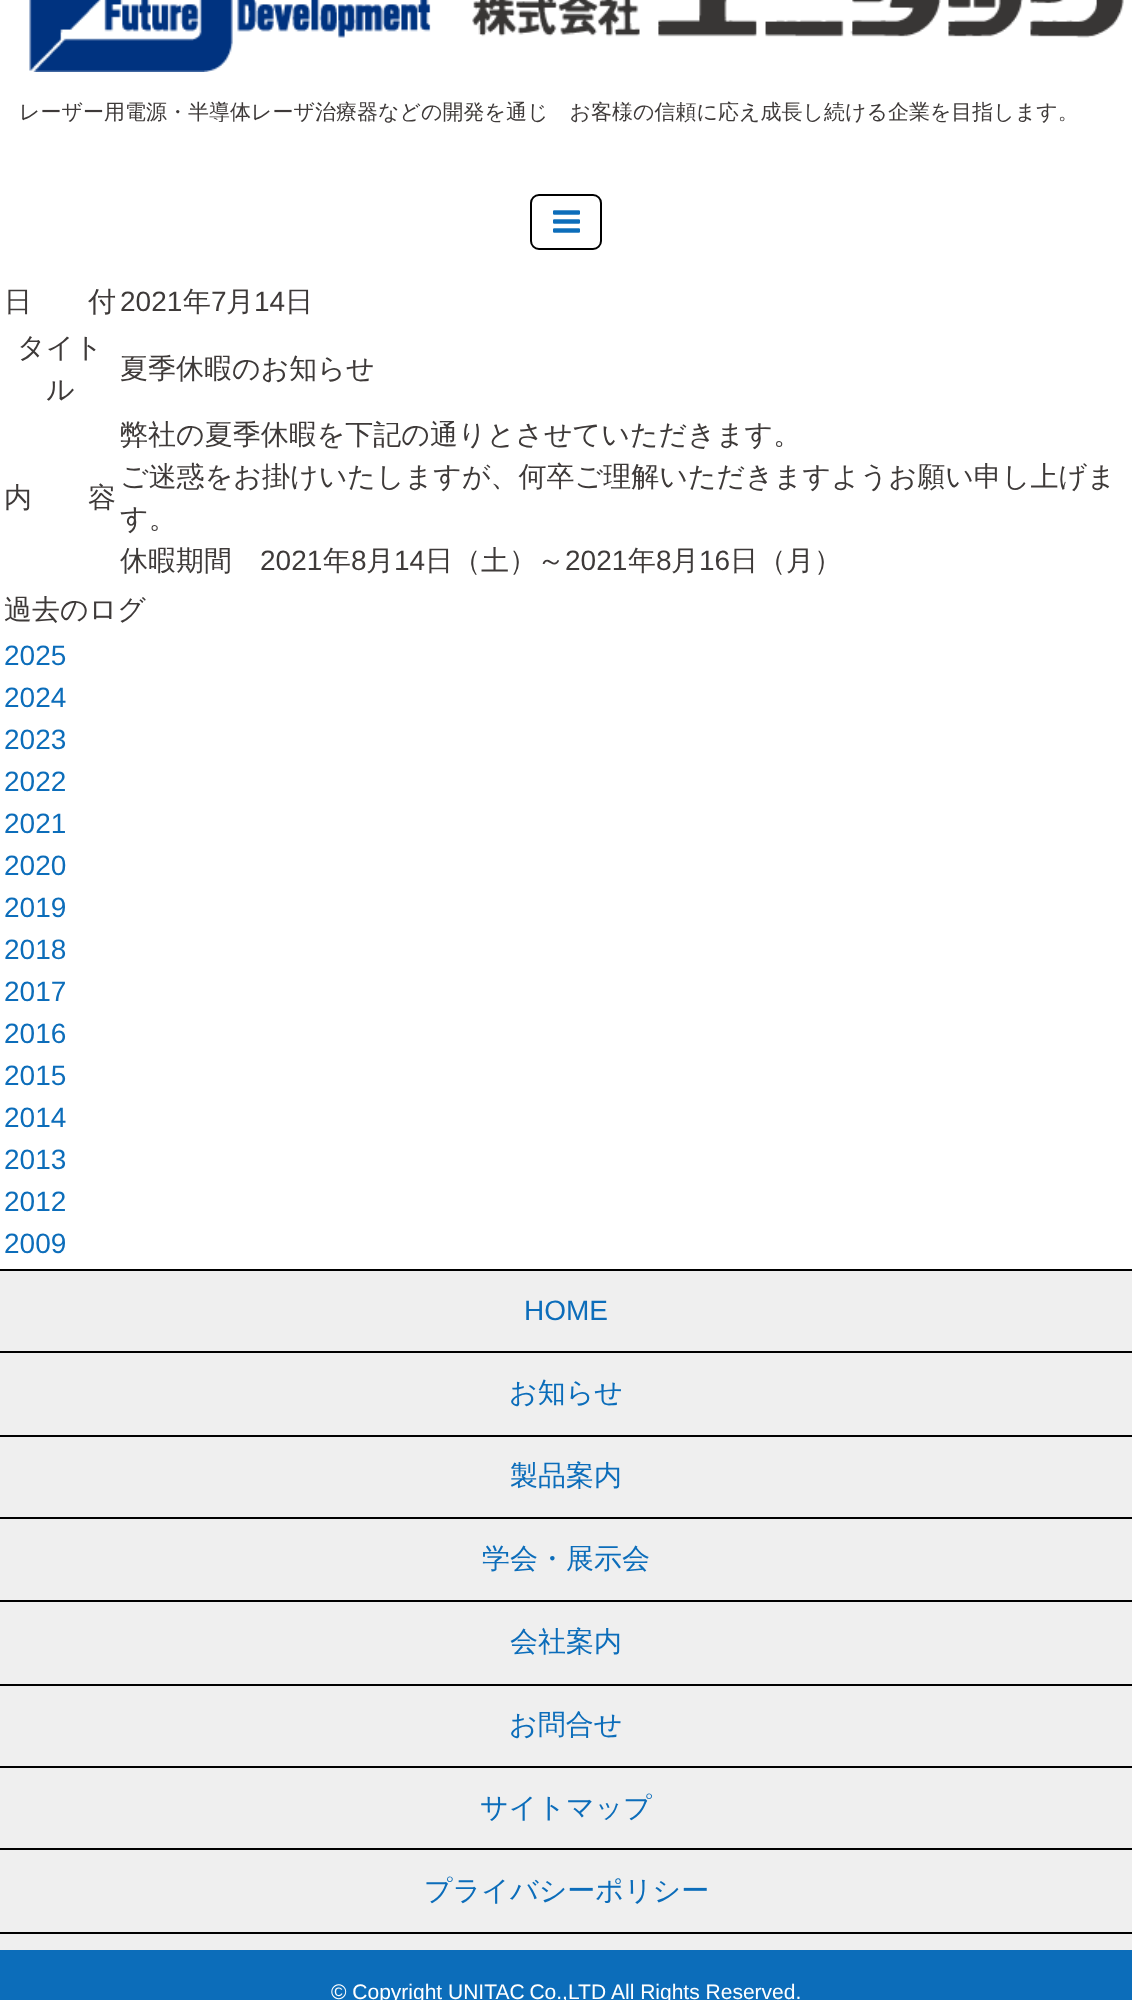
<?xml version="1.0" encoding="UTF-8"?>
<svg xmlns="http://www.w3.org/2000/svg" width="1132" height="2000">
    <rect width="100%" height="100%" fill="#FFFFFF"/>
    <image x="29" y="0" width="1095" height="72" href="img_01.png"/>
    <text x="19" y="119" font-family="WenQuanYi Zen Hei" font-size="21" font-weight="500" fill="#3E3A39">レーザー用電源・半導体レーザ治療器などの開発を通じ　お客様の信頼に応え成長し続ける企業を目指します。</text>
    <rect x="531" y="195" width="70" height="54" rx="8" fill="none" stroke="#000000" stroke-width="2"/>
    <image x="553" y="210" width="27" height="23" href="img_02.png"/>
    <text x="4" y="311" font-family="WenQuanYi Zen Hei" font-size="28" font-weight="500" fill="#3E3A39">日　　付</text>
    <text x="120" y="311" font-family="Liberation Sans" font-size="28" fill="#3E3A39">2021</text>
    <text x="183" y="311" font-family="WenQuanYi Zen Hei" font-size="28" font-weight="500" fill="#3E3A39">年</text>
    <text x="211" y="311" font-family="Liberation Sans" font-size="28" fill="#3E3A39">7</text>
    <text x="226" y="311" font-family="WenQuanYi Zen Hei" font-size="28" font-weight="500" fill="#3E3A39">月</text>
    <text x="254" y="311" font-family="Liberation Sans" font-size="28" fill="#3E3A39">14</text>
    <text x="285" y="311" font-family="WenQuanYi Zen Hei" font-size="28" font-weight="500" fill="#3E3A39">日</text>
    <text x="17" y="357" font-family="WenQuanYi Zen Hei" font-size="28" font-weight="500" fill="#3E3A39">タイト</text>
    <text x="46" y="399" font-family="WenQuanYi Zen Hei" font-size="28" font-weight="500" fill="#3E3A39">ル</text>
    <text x="120" y="378" font-family="WenQuanYi Zen Hei" font-size="28" font-weight="500" fill="#3E3A39">夏季休暇のお知らせ</text>
    <text x="4" y="507" font-family="WenQuanYi Zen Hei" font-size="28" font-weight="500" fill="#3E3A39">内　　容</text>
    <text font-family="WenQuanYi Zen Hei" font-size="28" font-weight="500" fill="#3E3A39">
        <tspan x="120" y="444">弊社の夏季休暇を下記の通りとさせていただきます。</tspan>
        <tspan x="120" y="486">ご迷惑をお掛けいたしますが、何卒ご理解いただきますようお願い申し上げま</tspan>
        <tspan x="120" y="528">す。</tspan>
        <tspan x="120" y="570">休暇期間</tspan>
    </text>
    <text x="260" y="570" font-family="Liberation Sans" font-size="28" fill="#3E3A39">2021</text>
    <text x="323" y="570" font-family="WenQuanYi Zen Hei" font-size="28" font-weight="500" fill="#3E3A39">年</text>
    <text x="351" y="570" font-family="Liberation Sans" font-size="28" fill="#3E3A39">8</text>
    <text x="366" y="570" font-family="WenQuanYi Zen Hei" font-size="28" font-weight="500" fill="#3E3A39">月</text>
    <text x="394" y="570" font-family="Liberation Sans" font-size="28" fill="#3E3A39">14</text>
    <text x="425" y="570" font-family="WenQuanYi Zen Hei" font-size="28" font-weight="500" fill="#3E3A39">日（土）～</text>
    <text x="565" y="570" font-family="Liberation Sans" font-size="28" fill="#3E3A39">2021</text>
    <text x="628" y="570" font-family="WenQuanYi Zen Hei" font-size="28" font-weight="500" fill="#3E3A39">年</text>
    <text x="656" y="570" font-family="Liberation Sans" font-size="28" fill="#3E3A39">8</text>
    <text x="671" y="570" font-family="WenQuanYi Zen Hei" font-size="28" font-weight="500" fill="#3E3A39">月</text>
    <text x="699" y="570" font-family="Liberation Sans" font-size="28" fill="#3E3A39">16</text>
    <text x="730" y="570" font-family="WenQuanYi Zen Hei" font-size="28" font-weight="500" fill="#3E3A39">日（月）</text>
    <text x="4" y="619" font-family="WenQuanYi Zen Hei" font-size="28" font-weight="500" fill="#3E3A39">過去のログ</text>
    <text font-family="Liberation Sans" font-size="28" fill="#0C6DBA">
        <tspan x="4" y="665">2025</tspan>
        <tspan x="4" y="707">2024</tspan>
        <tspan x="4" y="749">2023</tspan>
        <tspan x="4" y="791">2022</tspan>
        <tspan x="4" y="833">2021</tspan>
        <tspan x="4" y="875">2020</tspan>
        <tspan x="4" y="917">2019</tspan>
        <tspan x="4" y="959">2018</tspan>
        <tspan x="4" y="1001">2017</tspan>
        <tspan x="4" y="1043">2016</tspan>
        <tspan x="4" y="1085">2015</tspan>
        <tspan x="4" y="1127">2014</tspan>
        <tspan x="4" y="1169">2013</tspan>
        <tspan x="4" y="1211">2012</tspan>
        <tspan x="4" y="1253">2009</tspan>
    </text>
    <rect x="0" y="1271" width="1132" height="679" fill="#EFEFEF"/>
    <rect x="0" y="1269" width="1132" height="2" fill="#000000"/>
    <rect x="0" y="1351" width="1132" height="2" fill="#000000"/>
    <text x="524" y="1320" font-family="Liberation Sans" font-size="28" fill="#0C6DBA">HOME</text>
    <rect x="0" y="1435" width="1132" height="2" fill="#000000"/>
    <text x="509" y="1402" font-family="WenQuanYi Zen Hei" font-size="28" font-weight="500" fill="#0C6DBA">お知らせ</text>
    <rect x="0" y="1517" width="1132" height="2" fill="#000000"/>
    <text x="510" y="1485" font-family="WenQuanYi Zen Hei" font-size="28" font-weight="500" fill="#0C6DBA">製品案内</text>
    <rect x="0" y="1600" width="1132" height="2" fill="#000000"/>
    <text x="482" y="1568" font-family="WenQuanYi Zen Hei" font-size="28" font-weight="500" fill="#0C6DBA">学会・展示会</text>
    <rect x="0" y="1684" width="1132" height="2" fill="#000000"/>
    <text x="510" y="1651" font-family="WenQuanYi Zen Hei" font-size="28" font-weight="500" fill="#0C6DBA">会社案内</text>
    <rect x="0" y="1766" width="1132" height="2" fill="#000000"/>
    <text x="509" y="1734" font-family="WenQuanYi Zen Hei" font-size="28" font-weight="500" fill="#0C6DBA">お問合せ</text>
    <rect x="0" y="1848" width="1132" height="2" fill="#000000"/>
    <text x="480" y="1817" font-family="WenQuanYi Zen Hei" font-size="28" font-weight="500" fill="#0C6DBA">サイトマップ</text>
    <rect x="0" y="1932" width="1132" height="2" fill="#000000"/>
    <text x="424" y="1900" font-family="WenQuanYi Zen Hei" font-size="28" font-weight="500" fill="#0C6DBA">プライバシーポリシー</text>
    <rect x="0" y="1950" width="1132" height="50" fill="#0C6DBA"/>
    <text x="331" y="1999" font-family="Liberation Sans" font-size="21" fill="#FFFFFF">© Copyright</text>
    <text x="448" y="1999" word-spacing="-1" font-family="Liberation Sans" font-size="21" fill="#FFFFFF">UNITAC Co.,LTD</text>
    <text x="611" y="1999" font-family="Liberation Sans" font-size="21" fill="#FFFFFF">All Rights Reserved.</text>
</svg>
